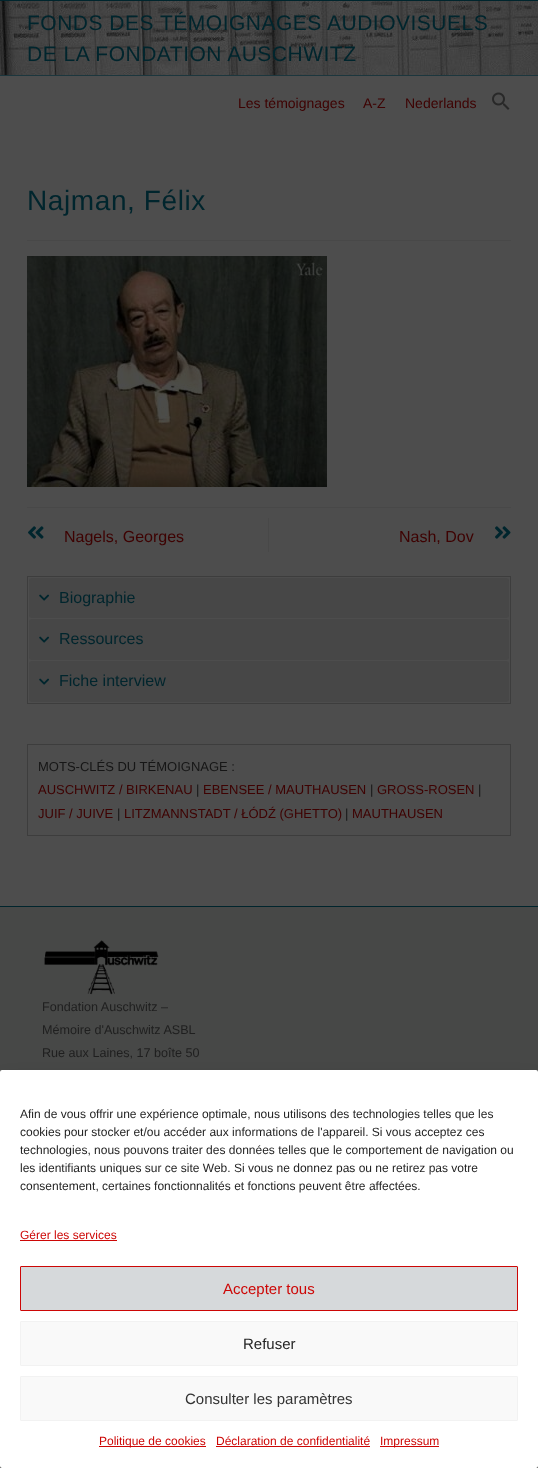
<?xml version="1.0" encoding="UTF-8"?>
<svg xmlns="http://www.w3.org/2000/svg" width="538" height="1468">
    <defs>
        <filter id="blur1" x="-50%" y="-200%" width="200%" height="500%"><feGaussianBlur stdDeviation="3"/></filter>
        <filter id="blur2" x="-50%" y="-200%" width="200%" height="500%"><feGaussianBlur stdDeviation="10"/></filter>
    </defs>
    <rect width="100%" height="100%" fill="#4D4D4D"/>
    <image x="0" y="1" width="538" height="74" href="img_01.png"/>
    <rect x="0" y="0" width="538" height="1" fill="#00252D"/>
    <rect x="0" y="75" width="538" height="1" fill="#1C363D"/>
    <text font-family="Liberation Sans" font-size="21" letter-spacing="0.5" fill="#00252D">
        <tspan x="27" y="30">FONDS DES TÉMOIGNAGES AUDIOVISUELS</tspan>
        <tspan x="27" y="61">DE LA FONDATION AUSCHWITZ</tspan>
    </text>
    <text x="238" y="108" font-family="Liberation Sans" font-size="14" fill="#3E0202">Les témoignages</text>
    <text x="363" y="108" font-family="Liberation Sans" font-size="14" fill="#3E0202">A-Z</text>
    <text x="405" y="108" font-family="Liberation Sans" font-size="14" fill="#3E0202">Nederlands</text>
    <image x="492" y="92" width="18" height="18" href="img_02.png"/>
    <rect x="27" y="240" width="484" height="1" fill="#484848"/>
    <text x="27" y="210" font-family="Liberation Sans" font-size="28" letter-spacing="0.6" fill="#00252D">Najman, Félix</text>
    <image x="27" y="256" width="300" height="231" href="img_03.png"/>
    <rect x="27" y="507" width="484" height="1" fill="#484848"/>
    <rect x="268" y="518" width="1" height="34" fill="#484848"/>
    <image x="28" y="526" width="16" height="13" href="img_04.png"/>
    <text x="64" y="542" font-family="Liberation Sans" font-size="16" fill="#3E0202">Nagels, Georges</text>
    <text x="399" y="542" font-family="Liberation Sans" font-size="16" fill="#3E0202">Nash, Dov</text>
    <image x="495" y="526" width="16" height="13" href="img_05.png"/>
    <rect x="27.5" y="576.5" width="483" height="127" fill="none" stroke="#3D3D3D"/>
    <rect x="29" y="578" width="480" height="40" rx="3" fill="#474747"/>
    <image x="39" y="594" width="11" height="7" href="img_06.png"/>
    <text x="59" y="603" font-family="Liberation Sans" font-size="16" fill="#00252D">Biographie</text>
    <rect x="29" y="619" width="480" height="41" rx="3" fill="#474747"/>
    <image x="39" y="636" width="11" height="7" href="img_06.png"/>
    <text x="59" y="644" font-family="Liberation Sans" font-size="16" fill="#00252D">Ressources</text>
    <rect x="29" y="661" width="480" height="41" rx="3" fill="#474747"/>
    <image x="39" y="678" width="11" height="7" href="img_06.png"/>
    <text x="59" y="686" font-family="Liberation Sans" font-size="16" fill="#00252D">Fiche interview</text>
    <rect x="27.5" y="744.5" width="483" height="91" fill="none" stroke="#3D3D3D"/>
    <text x="38" y="771" font-family="Liberation Sans" font-size="13" fill="#161616">MOTS-CLÉS DU TÉMOIGNAGE :</text>
    <text x="38" y="794" font-family="Liberation Sans" font-size="13" fill="#3E0202">AUSCHWITZ / BIRKENAU</text>
    <text x="196" y="794" font-family="Liberation Sans" font-size="13" fill="#161616">|</text>
    <text x="203" y="794" font-family="Liberation Sans" font-size="13" fill="#3E0202">EBENSEE / MAUTHAUSEN</text>
    <text x="370" y="794" font-family="Liberation Sans" font-size="13" fill="#161616">|</text>
    <text x="377" y="794" font-family="Liberation Sans" font-size="13" fill="#3E0202">GROSS-ROSEN</text>
    <text x="478" y="794" font-family="Liberation Sans" font-size="13" fill="#161616">|</text>
    <text x="38" y="818" font-family="Liberation Sans" font-size="13" fill="#3E0202">JUIF / JUIVE</text>
    <text x="117" y="818" font-family="Liberation Sans" font-size="13" fill="#161616">|</text>
    <text x="124" y="818" font-family="Liberation Sans" font-size="13" fill="#3E0202">LITZMANNSTADT / ŁÓDŹ (GHETTO)</text>
    <text x="345" y="818" font-family="Liberation Sans" font-size="13" fill="#161616">|</text>
    <text x="352" y="818" font-family="Liberation Sans" font-size="13" fill="#3E0202">MAUTHAUSEN</text>
    <rect x="0" y="906" width="538" height="1" fill="#00252D"/>
    <rect x="0" y="907" width="538" height="561" fill="#474847"/>
    <image x="44" y="940" width="115" height="55" href="img_07.png"/>
    <text font-family="Liberation Sans" font-size="12.6" fill="#1F1F1F">
        <tspan x="42" y="1011">Fondation Auschwitz –</tspan>
        <tspan x="42" y="1034">Mémoire d'Auschwitz ASBL</tspan>
        <tspan x="42" y="1057">Rue aux Laines, 17 boîte 50</tspan>
    </text>
    <rect x="0" y="1076" width="538" height="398" rx="2" fill="#000000" fill-opacity="0.23" filter="url(#blur1)"/>
    <rect x="0" y="1080" width="538" height="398" rx="2" fill="#000000" fill-opacity="0.19" filter="url(#blur2)"/>
    <rect x="0" y="1070" width="538" height="398" rx="2" fill="#FFFFFF"/>
    <text font-family="Liberation Sans" font-size="12" fill="#1F1F1F">
        <tspan x="20" y="1118">Afin de vous offrir une expérience optimale, nous utilisons des technologies telles que les</tspan>
        <tspan x="20" y="1136">cookies pour stocker et/ou accéder aux informations de l'appareil. Si vous acceptez ces</tspan>
        <tspan x="20" y="1154">technologies, nous pouvons traiter des données telles que le comportement de navigation ou</tspan>
        <tspan x="20" y="1172">les identifiants uniques sur ce site Web. Si vous ne donnez pas ou ne retirez pas votre</tspan>
        <tspan x="20" y="1190">consentement, certaines fonctionnalités et fonctions peuvent être affectées.</tspan>
    </text>
    <text x="20" y="1239" font-family="Liberation Sans" font-size="12" fill="#CD0706">Gérer les services</text>
    <rect x="20" y="1240" width="97" height="1" fill="#CD0706"/>
    <rect x="20.5" y="1266.5" width="497" height="44" rx="0.5" fill="#D6D9DB" stroke="#CD0706"/>
    <text x="223" y="1294" font-family="Liberation Sans" font-size="15" fill="#CD0706">Accepter tous</text>
    <rect x="20.5" y="1321.5" width="497" height="44" rx="0.5" fill="#F9F9F9" stroke="#F2F2F2"/>
    <text x="243" y="1349" font-family="Liberation Sans" font-size="15" fill="#1F1F1F">Refuser</text>
    <rect x="20.5" y="1376.5" width="497" height="44" rx="0.5" fill="#F9F9F9" stroke="#F2F2F2"/>
    <text x="185" y="1404" font-family="Liberation Sans" font-size="15" fill="#333333">Consulter les paramètres</text>
    <rect x="99" y="1446" width="107" height="1" fill="#CD0706"/>
    <text x="99" y="1445" font-family="Liberation Sans" font-size="12" fill="#CD0706">Politique de cookies</text>
    <text x="216" y="1445" font-family="Liberation Sans" font-size="12" fill="#CD0706">Déclaration de confidentialité</text>
    <rect x="216" y="1446" width="154" height="1" fill="#CD0706"/>
    <rect x="380" y="1446" width="59" height="1" fill="#CD0706"/>
    <text x="380" y="1445" font-family="Liberation Sans" font-size="12" fill="#CD0706">Impressum</text>
</svg>
